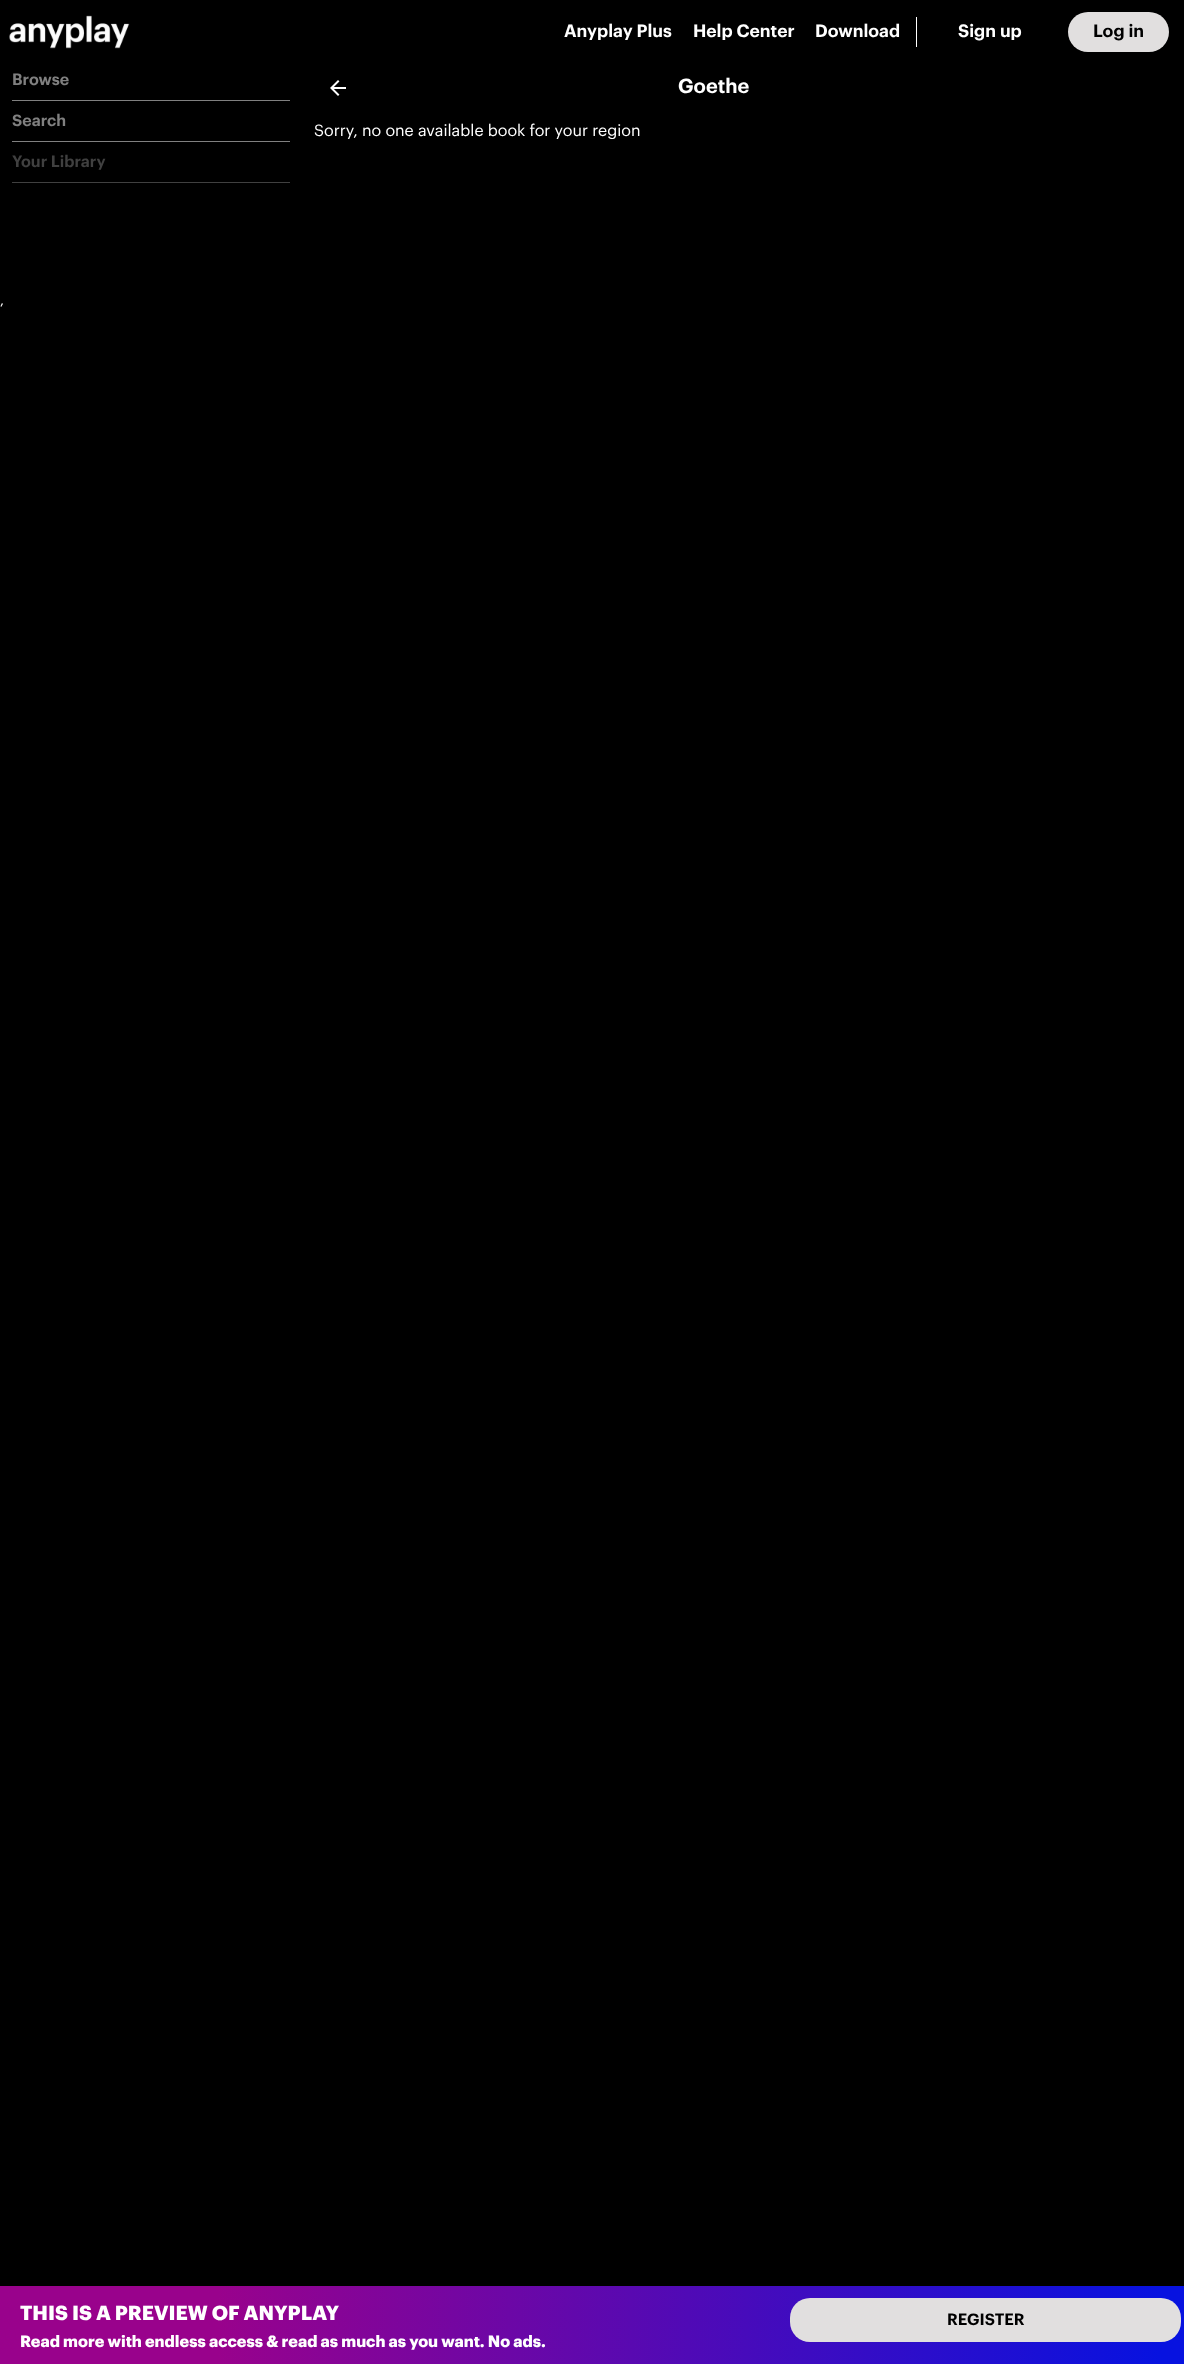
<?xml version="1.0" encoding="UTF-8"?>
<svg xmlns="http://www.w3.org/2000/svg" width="1184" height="2364">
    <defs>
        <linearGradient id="g1" gradientUnits="userSpaceOnUse" x1="-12" y1="2331" x2="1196" y2="2331"><stop offset="0.19" stop-color="#99028C"/><stop offset="0.97" stop-color="#0712E0"/></linearGradient>
    </defs>
    <rect width="100%" height="100%" fill="#000000"/>
    <image x="9" y="15" width="121" height="34" href="img_01.png"/>
    <text x="564" y="37" font-family="Graphik" font-size="17.5" font-weight="600" fill="#FFFFFF">Anyplay Plus</text>
    <text x="693" y="37" font-family="Graphik" font-size="17.5" font-weight="600" fill="#FFFFFF">Help Center</text>
    <text x="815" y="37" font-family="Graphik" font-size="17.5" font-weight="600" fill="#FFFFFF">Download</text>
    <rect x="916" y="17" width="1" height="30" fill="#FFFFFF"/>
    <text x="958" y="37" font-family="Graphik" font-size="17.5" font-weight="600" fill="#FFFFFF">Sign up</text>
    <rect x="1068" y="12" width="101" height="40" rx="20" fill="#E1DFDF"/>
    <text x="1093" y="37" font-family="Graphik" font-size="17.5" font-weight="600" fill="#000000">Log in</text>
    <text x="0" y="305" font-family="Graphik" font-size="14" fill="#FFFFFF">,</text>
    <rect x="12" y="100" width="278" height="1" fill="#808080"/>
    <text x="12" y="85" font-family="Graphik" font-size="16" font-weight="600" fill="#808080">Browse</text>
    <rect x="12" y="141" width="278" height="1" fill="#808080"/>
    <text x="12" y="126" font-family="Graphik" font-size="16" font-weight="600" fill="#808080">Search</text>
    <rect x="12" y="182" width="278" height="1" fill="#404040"/>
    <text x="12" y="167" font-family="Graphik" font-size="16" font-weight="600" fill="#404040">Your Library</text>
    <image x="330" y="80" width="16" height="16" href="img_02.png"/>
    <text x="678" y="93" font-family="Graphik" font-size="20" font-weight="600" fill="#FFFFFF">Goethe</text>
    <text x="314" y="136" font-family="Graphik" font-size="16" fill="#FFFFFF">Sorry, no one available book for your region</text>
    <rect x="0" y="2286" width="1184" height="78" fill="url(#g1)"/>
    <text x="20" y="2320" font-family="Graphik" font-size="20" font-weight="700" fill="#FFFFFF">THIS IS A PREVIEW OF ANYPLAY</text>
    <text x="20" y="2347" font-family="Graphik" font-size="16" font-weight="700" fill="#FFFFFF">Read more with endless access &amp; read as much as you want. No ads.</text>
    <rect x="790" y="2298" width="391" height="44" rx="20" fill="#E1DFDF"/>
    <text x="947" y="2325" font-family="Graphik" font-size="16" font-weight="600" fill="#000000">REGISTER</text>
</svg>
